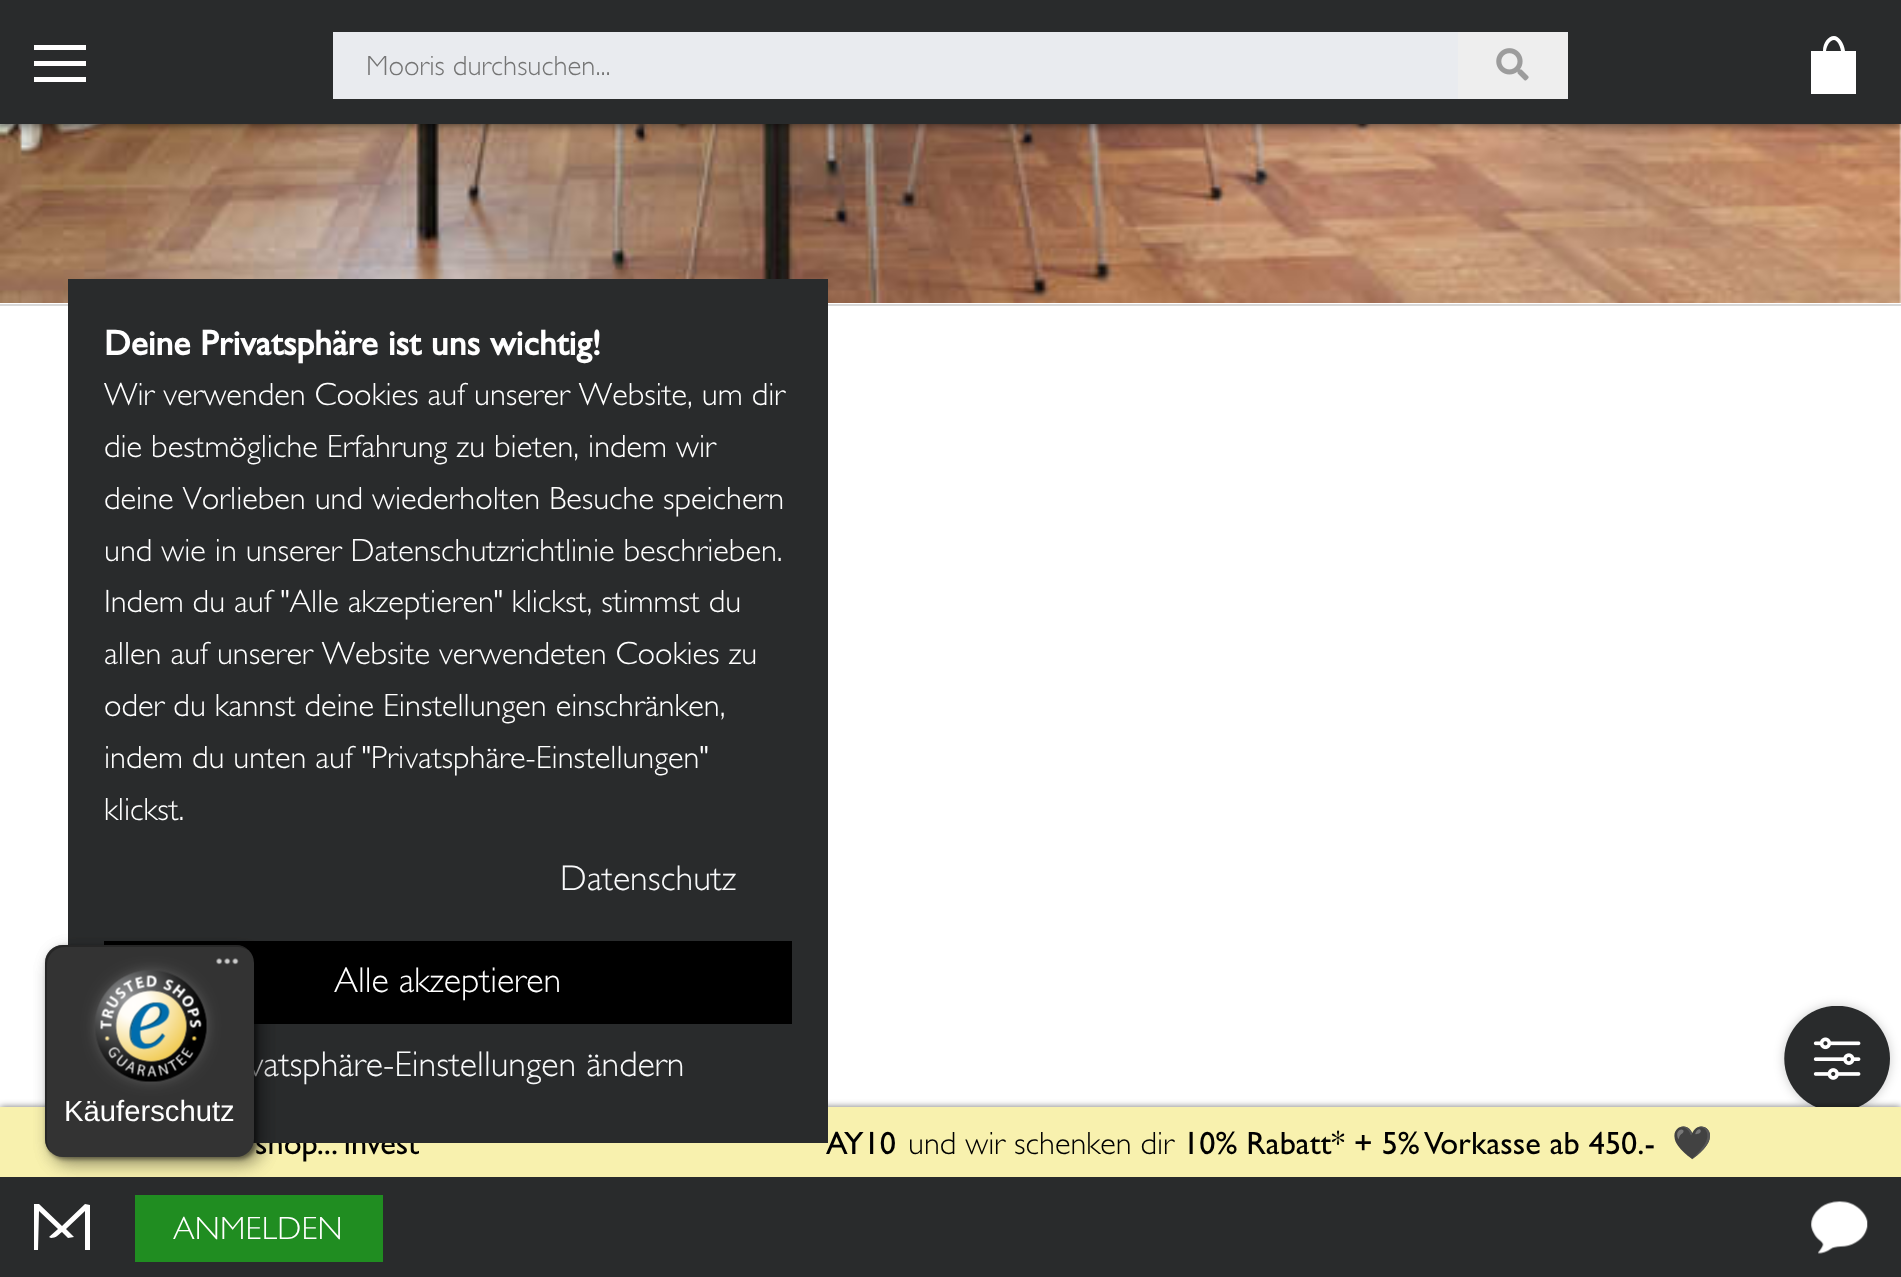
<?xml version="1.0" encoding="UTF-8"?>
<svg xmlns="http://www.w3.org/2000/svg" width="1901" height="1277">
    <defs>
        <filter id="blur1" x="-50%" y="-200%" width="200%" height="500%"><feGaussianBlur stdDeviation="4.5"/></filter>
        <clipPath id="clip1"><rect x="333" y="56" width="1206" height="30"/></clipPath>
        <filter id="blur2" x="-50%" y="-200%" width="200%" height="500%"><feGaussianBlur stdDeviation="5.5"/></filter>
        <filter id="blur3" x="-50%" y="-200%" width="200%" height="500%"><feGaussianBlur stdDeviation="3.5"/></filter>
        <filter id="blur4" x="-50%" y="-200%" width="200%" height="500%"><feGaussianBlur stdDeviation="9"/></filter>
        <filter id="blur5" x="-50%" y="-200%" width="200%" height="500%"><feGaussianBlur stdDeviation="2"/></filter>
        <filter id="blur6" x="-50%" y="-200%" width="200%" height="500%"><feGaussianBlur stdDeviation="11"/></filter>
    </defs>
    <rect width="100%" height="100%" fill="#FFFFFF"/>
    <image x="0" y="124" width="1901" height="179" href="img_02.png"/>
    <rect x="0" y="2" width="1901" height="124" fill="#000000" fill-opacity="0.5" filter="url(#blur1)"/>
    <rect x="0" y="0" width="1901" height="124" fill="#292B2C"/>
    <rect x="34" y="61" width="52" height="5" fill="#FFFFFF"/>
    <rect x="34" y="45" width="52" height="5" fill="#FFFFFF"/>
    <rect x="34" y="77" width="52" height="5" fill="#FFFFFF"/>
    <rect x="333" y="32" width="1235" height="67" fill="#E9EBEF"/>
    <g clip-path="url(#clip1)">
        <text x="366" y="75" font-family="Gill Sans" font-size="28.75" font-weight="300" fill="#757575">Mooris durchsuchen...</text>
    </g>
    <path d="M 1458 32 H 1563 C 1566 32 1568 34 1568 37 V 94 C 1568 97 1566 99 1563 99 H 1458 Z" fill="#EEEEEE"/>
    <image x="1496" y="48" width="33" height="33" href="img_01.png"/>
    <path d="M 1834 36 C 1839 36 1844 43 1845 51 H 1856 V 94 H 1811 V 51 H 1823 C 1823 43 1828 36 1834 36 Z M 1834 40 C 1830 40 1827 45 1826 51 H 1841 C 1840 45 1837 40 1834 40 Z" fill="#FFFFFF"/>
    <rect x="0" y="304" width="1901" height="2" fill="#D8D8D8"/>
    <rect x="1784" y="1006" width="106" height="106" rx="53" fill="#000000" fill-opacity="0.2" filter="url(#blur2)"/>
    <image x="1784" y="1006" width="106" height="101" href="img_03.png"/>
    <rect x="0" y="1107" width="1901" height="70" fill="#000000" fill-opacity="0.55" filter="url(#blur3)"/>
    <rect x="0" y="1177" width="1901" height="100" fill="#292B2C"/>
    <path d="M 34 1227 V 1250 H 38 L 39 1211 L 58 1229 L 49 1237 L 51 1238 C 56 1238 58 1235 62 1232 L 68 1238 L 74 1237 L 66 1229 L 85 1211 V 1250 H 90 V 1205 L 85 1204 L 62 1226 L 39 1204 H 34 Z" fill="#FFFFFF"/>
    <rect x="135" y="1195" width="248" height="67" fill="#208D21"/>
    <text x="173" y="1239" font-family="Gill Sans" font-size="32.4" font-weight="300" letter-spacing="0.25" fill="#FFFFFF">ANMELDEN</text>
    <image x="1811" y="1201" width="57" height="53" href="img_04.png"/>
    <rect x="0" y="1107" width="1901" height="70" fill="#F8F1AE"/>
    <text x="255" y="1154" font-family="Gill Sans" font-size="32.4" fill="#000000">shop... invest</text>
    <text x="826" y="1154" font-family="Gill Sans" font-size="32.4" fill="#000000">AY10</text>
    <rect x="68" y="279" width="760" height="864" fill="#292B2C"/>
    <text x="104" y="355" font-family="Gill Sans" font-size="35.6" font-weight="700" fill="#FFFFFF">Deine Privatsphäre ist uns wichtig!</text>
    <text font-family="Gill Sans" font-size="32.4" font-weight="300" fill="#FFFFFF">
        <tspan x="104" y="405">Wir verwenden Cookies auf unserer Website, um dir</tspan>
        <tspan x="104" y="457">die bestmögliche Erfahrung zu bieten, indem wir</tspan>
        <tspan x="104" y="509">deine Vorlieben und wiederholten Besuche speichern</tspan>
        <tspan x="104" y="561">und wie in unserer Datenschutzrichtlinie beschrieben.</tspan>
        <tspan x="104" y="612">Indem du auf "Alle akzeptieren" klickst, stimmst du</tspan>
        <tspan x="104" y="664">allen auf unserer Website verwendeten Cookies zu</tspan>
        <tspan x="104" y="716">oder du kannst deine Einstellungen einschränken,</tspan>
        <tspan x="104" y="768">indem du unten auf "Privatsphäre-Einstellungen"</tspan>
        <tspan x="104" y="820">klickst.</tspan>
    </text>
    <text x="560" y="890" font-family="Gill Sans" font-size="36" font-weight="300" fill="#F8F9FA">Datenschutz</text>
    <rect x="104" y="941" width="688" height="83" fill="#000000"/>
    <text x="334" y="992" font-family="Gill Sans" font-size="36" font-weight="300" fill="#FFFFFF">Alle akzeptieren</text>
    <text x="248" y="1076" font-family="Gill Sans" font-size="36" font-weight="300" fill="#F8F9FA">vatsphäre-Einstellungen ändern</text>
    <rect x="52" y="952" width="209" height="211" rx="18" fill="#000000" fill-opacity="0.25" filter="url(#blur4)"/>
    <rect x="47" y="947" width="210" height="212" rx="18" fill="#000000" fill-opacity="0.25" filter="url(#blur5)"/>
    <path d="M 65 947 H 238 C 242 947 246 949 250 951 C 246 947 241 945 236 945 H 63 C 53 945 45 953 45 963 V 1139 C 45 1144 47 1149 51 1153 C 49 1149 47 1145 47 1141 V 965 C 47 955 55 947 65 947 Z" fill="#000000" fill-opacity="0.25"/>
    <rect x="52" y="952" width="209" height="211" rx="18" fill="#000000" fill-opacity="0.25" filter="url(#blur4)"/>
    <rect x="47" y="947" width="210" height="212" rx="18" fill="#000000" fill-opacity="0.25" filter="url(#blur5)"/>
    <rect x="45" y="945" width="209" height="212" rx="18" fill="#333333"/>
    <path d="M 65 947 H 238 C 242 947 246 949 250 951 C 246 947 241 945 236 945 H 63 C 53 945 45 953 45 963 V 1139 C 45 1144 47 1149 51 1153 C 49 1149 47 1145 47 1141 V 965 C 47 955 55 947 65 947 Z" fill="#000000" fill-opacity="0.25"/>
    <rect x="106" y="981" width="90" height="90" rx="45" fill="#FFFFFF" fill-opacity="0.75" filter="url(#blur6)"/>
    <image x="216" y="958" width="23" height="7" href="img_05.png"/>
    <image x="95" y="970" width="112" height="112" href="img_06.png"/>
    <text x="64" y="1121" font-family="Liberation Sans" font-size="29.25" fill="#FFFFFF">Käuferschutz</text>
    <text x="908" y="1154" font-family="Gill Sans" font-size="32.4" font-weight="300" fill="#000000">und wir schenken dir</text>
    <text x="1183" y="1154" font-family="Gill Sans" font-size="32.4" fill="#000000">10% Rabatt* + 5% Vorkasse ab 450.-</text>
    <text x="1672" y="1154" font-family="Noto Color Emoji" font-size="32.4" fill="#000000">🖤</text>
</svg>
